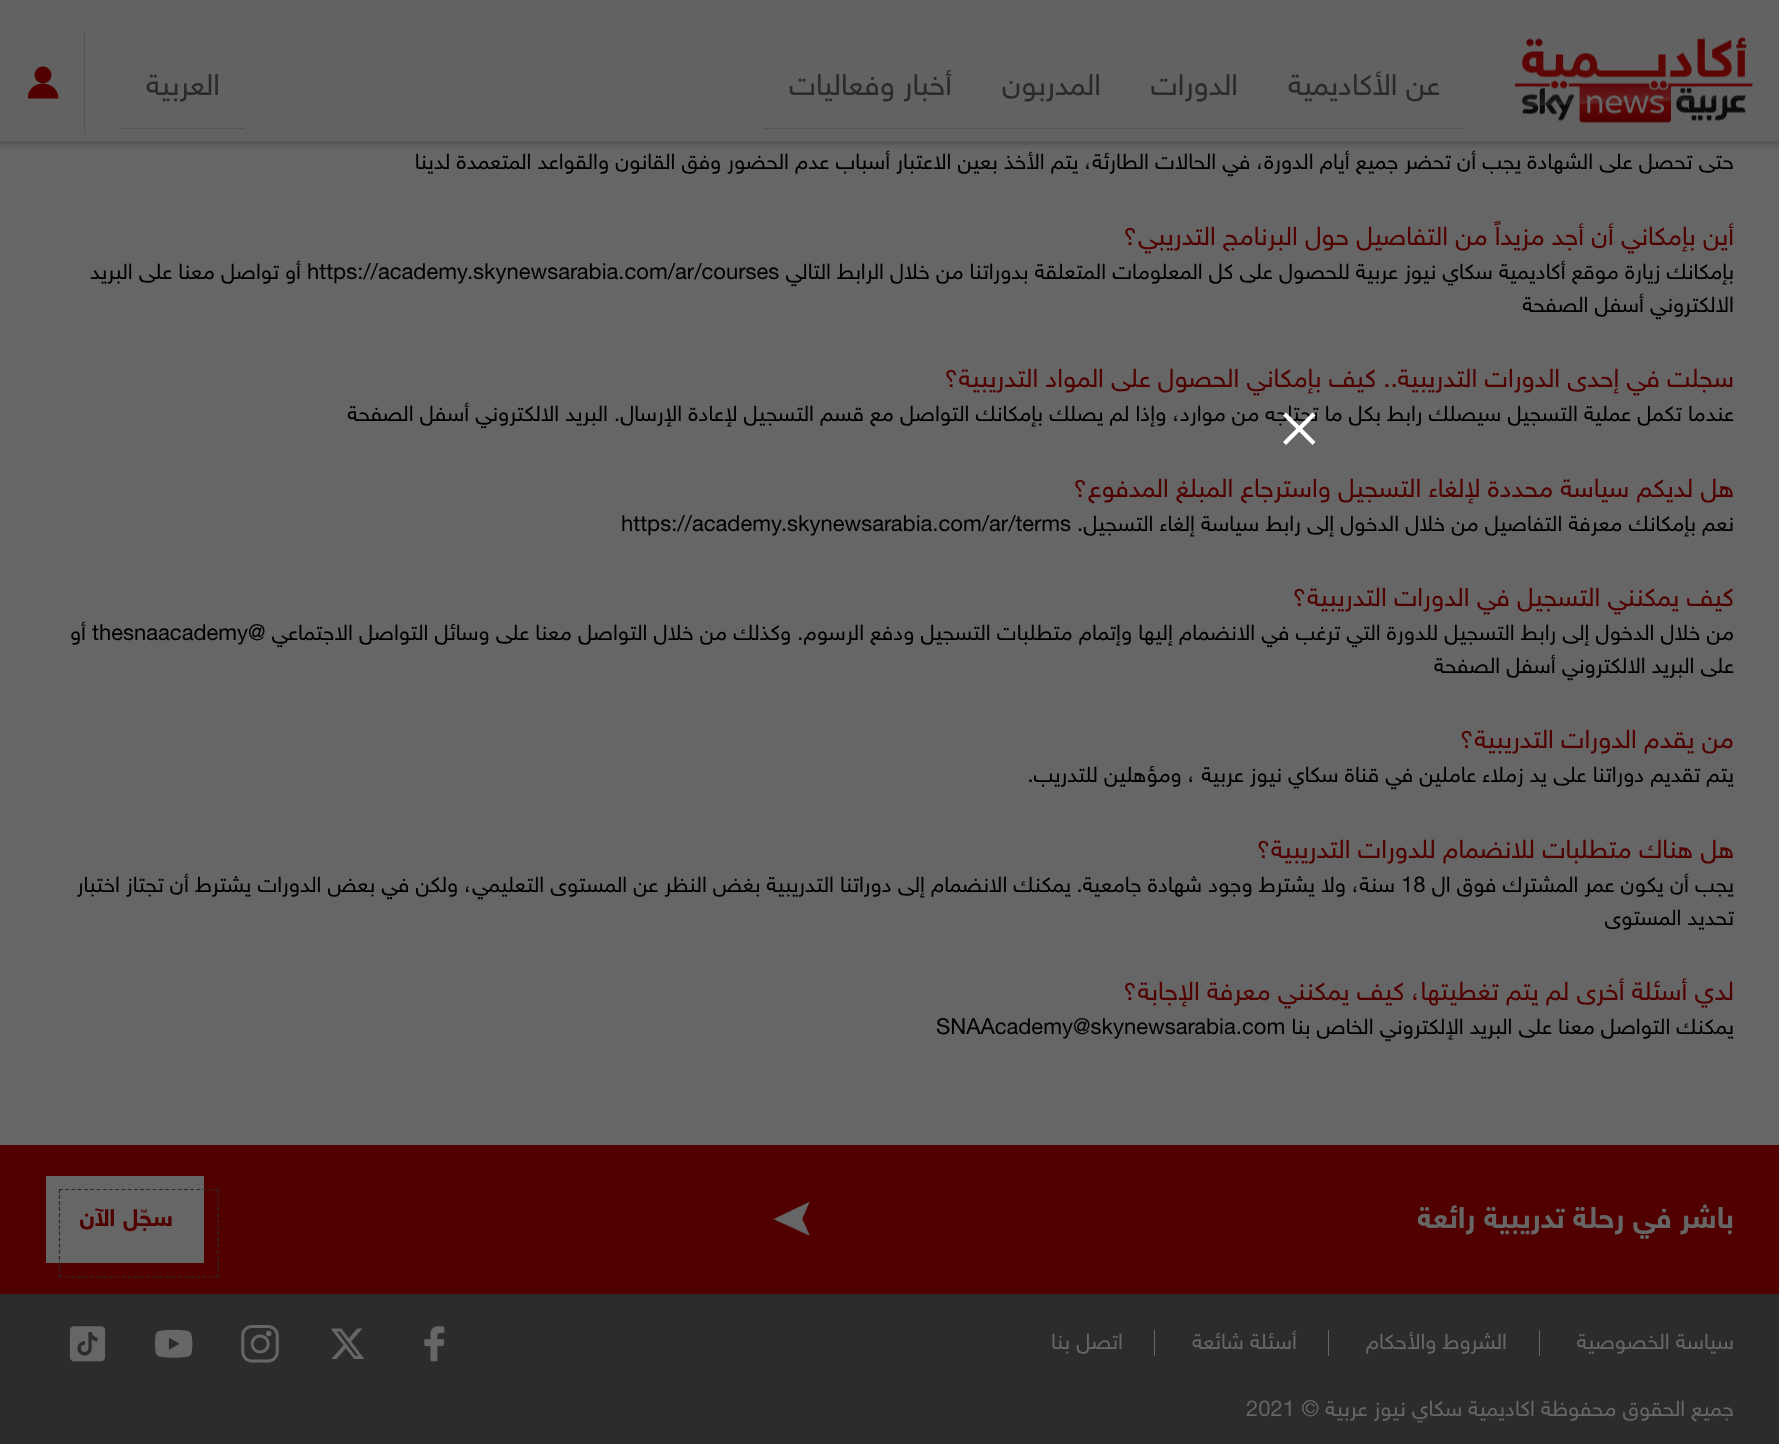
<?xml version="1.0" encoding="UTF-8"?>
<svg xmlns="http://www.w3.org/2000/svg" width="1779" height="1444">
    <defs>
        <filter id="blur1" x="-50%" y="-200%" width="200%" height="500%"><feGaussianBlur stdDeviation="2.5"/></filter>
        <clipPath id="clip1"><rect x="28" y="66" width="31" height="33"/></clipPath>
    </defs>
    <rect width="100%" height="100%" fill="#666666"/>
    <rect x="-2" y="-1" width="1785" height="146" fill="#2D2C2C" fill-opacity="0.31" filter="url(#blur1)"/>
    <rect x="0" y="0" width="1779" height="141" fill="#626262"/>
    <image x="1515" y="37" width="238" height="86" href="img_01.png"/>
    <rect x="764" y="128" width="701" height="1" fill="#545454"/>
    <text x="1440" y="95" font-family="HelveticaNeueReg" font-size="30" direction="rtl" fill="#2A2A2A">عن الأكاديمية</text>
    <text x="1238" y="95" font-family="HelveticaNeueReg" font-size="30" direction="rtl" fill="#2A2A2A">الدورات</text>
    <text x="1101" y="95" font-family="HelveticaNeueReg" font-size="30" direction="rtl" fill="#2A2A2A">المدربون</text>
    <text x="952" y="95" font-family="HelveticaNeueReg" font-size="30" direction="rtl" fill="#2A2A2A">أخبار وفعاليات</text>
    <rect x="121" y="128" width="124" height="1" fill="#545454"/>
    <text x="220" y="95" font-family="HelveticaNeueReg" font-size="30" direction="rtl" fill="#2A2A2A">العربية</text>
    <rect x="84" y="31" width="1" height="104" fill="#545454"/>
    <circle cx="43" cy="75" r="8.5" fill="#500000"/>
    <g clip-path="url(#clip1)">
        <path d="M 58.5 98.5 H 27.5 C 27.5 90 34.5 83.5 43 83.5 C 51.5 83.5 58.5 90 58.5 98.5 Z" fill="#500000"/>
    </g>
    <text x="1734" y="169" font-family="HelveticaNeueReg" font-size="22" direction="rtl" fill="#000000">حتى تحصل على الشهادة يجب أن تحضر جميع أيام الدورة، في الحالات الطارئة، يتم الأخذ بعين الاعتبار أسباب عدم الحضور وفق القانون والقواعد المتعمدة لدينا</text>
    <text x="1734" y="245" font-family="HelveticaNeueReg" font-size="26" direction="rtl" fill="#510000">أين بإمكاني أن أجد مزيداً من التفاصيل حول البرنامج التدريبي؟</text>
    <text x="1734" y="279" font-family="HelveticaNeueReg" font-size="22" direction="rtl" fill="#000000">بإمكانك زيارة موقع أكاديمية سكاي نيوز عربية للحصول على كل المعلومات المتعلقة بدوراتنا من خلال الرابط التالي</text>
    <text x="307" y="279" font-family="HelveticaNeueReg" font-size="22" fill="#000000">https://academy.skynewsarabia.com/ar/courses</text>
    <text x="301" y="279" font-family="HelveticaNeueReg" font-size="22" direction="rtl" fill="#000000">أو تواصل معنا على البريد</text>
    <text x="1734" y="312" font-family="HelveticaNeueReg" font-size="22" direction="rtl" fill="#000000">الالكتروني أسفل الصفحة</text>
    <text x="1734" y="387" font-family="HelveticaNeueReg" font-size="26" direction="rtl" fill="#510000">سجلت في إحدى الدورات التدريبية.. كيف بإمكاني الحصول على المواد التدريبية؟</text>
    <text x="1734" y="421" font-family="HelveticaNeueReg" font-size="22" direction="rtl" fill="#000000">عندما تكمل عملية التسجيل سيصلك رابط بكل ما تحتاجه من موارد، وإذا لم يصلك بإمكانك التواصل مع قسم التسجيل لإعادة الإرسال. البريد الالكتروني أسفل الصفحة</text>
    <text x="1734" y="497" font-family="HelveticaNeueReg" font-size="26" direction="rtl" fill="#510000">هل لديكم سياسة محددة لإلغاء التسجيل واسترجاع المبلغ المدفوع؟</text>
    <text x="1734" y="531" font-family="HelveticaNeueReg" font-size="22" direction="rtl" fill="#000000">نعم بإمكانك معرفة التفاصيل من خلال الدخول إلى رابط سياسة إلغاء التسجيل.</text>
    <text x="621" y="531" font-family="HelveticaNeueReg" font-size="22" fill="#000000">https://academy.skynewsarabia.com/ar/terms</text>
    <text x="1734" y="606" font-family="HelveticaNeueReg" font-size="26" direction="rtl" fill="#510000">كيف يمكنني التسجيل في الدورات التدريبية؟</text>
    <text x="1734" y="640" font-family="HelveticaNeueReg" font-size="22" direction="rtl" fill="#000000">من خلال الدخول إلى رابط التسجيل للدورة التي ترغب في الانضمام إليها وإتمام متطلبات التسجيل ودفع الرسوم. وكذلك من خلال التواصل معنا على وسائل التواصل الاجتماعي</text>
    <text x="92" y="640" font-family="HelveticaNeueReg" font-size="22" fill="#000000">thesnaacademy@</text>
    <text x="86" y="640" font-family="HelveticaNeueReg" font-size="22" direction="rtl" fill="#000000">أو</text>
    <text x="1734" y="673" font-family="HelveticaNeueReg" font-size="22" direction="rtl" fill="#000000">على البريد الالكتروني أسفل الصفحة</text>
    <text x="1734" y="748" font-family="HelveticaNeueReg" font-size="26" direction="rtl" fill="#510000">من يقدم الدورات التدريبية؟</text>
    <text x="1734" y="782" font-family="HelveticaNeueReg" font-size="22" direction="rtl" fill="#000000">يتم تقديم دوراتنا على يد زملاء عاملين في قناة سكاي نيوز عربية ، ومؤهلين للتدريب.</text>
    <text x="1734" y="858" font-family="HelveticaNeueReg" font-size="26" direction="rtl" fill="#510000">هل هناك متطلبات للانضمام للدورات التدريبية؟</text>
    <text x="1734" y="892" font-family="HelveticaNeueReg" font-size="22" direction="rtl" fill="#000000">يجب أن يكون عمر المشترك فوق ال</text>
    <text x="1401" y="892" font-family="HelveticaNeueReg" font-size="22" fill="#000000">18</text>
    <text x="1395" y="892" font-family="HelveticaNeueReg" font-size="22" direction="rtl" fill="#000000">سنة، ولا يشترط وجود شهادة جامعية.</text>
    <text x="1071" y="892" font-family="HelveticaNeueReg" font-size="22" direction="rtl" fill="#000000">يمكنك الانضمام إلى دوراتنا التدريبية بغض النظر عن المستوى التعليمي، ولكن في بعض الدورات يشترط أن تجتاز اختبار</text>
    <text x="1734" y="925" font-family="HelveticaNeueReg" font-size="22" direction="rtl" fill="#000000">تحديد المستوى</text>
    <text x="1734" y="1000" font-family="HelveticaNeueReg" font-size="26" direction="rtl" fill="#510000">لدي أسئلة أخرى لم يتم تغطيتها، كيف يمكنني معرفة الإجابة؟</text>
    <text x="1734" y="1034" font-family="HelveticaNeueReg" font-size="22" direction="rtl" fill="#000000">يمكنك التواصل معنا على البريد الإلكتروني الخاص بنا</text>
    <text x="936" y="1034" font-family="HelveticaNeueReg" font-size="22" fill="#000000">SNAAcademy@skynewsarabia.com</text>
    <path d="M 1286 412.5 L 1315.5 442 L 1312.5 445 L 1283 415.5 Z" fill="#FFFFFF"/>
    <path d="M 1312.5 412.5 L 1283 442 L 1286 445 L 1315.5 415.5 Z" fill="#FFFFFF"/>
    <rect x="0" y="1145" width="1779" height="149" fill="#510000"/>
    <text x="1734" y="1228" font-family="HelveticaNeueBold" font-size="30" font-weight="700" direction="rtl" fill="#666666">باشر في رحلة تدريبية رائعة</text>
    <image x="773" y="1202" width="37" height="34" href="img_02.png"/>
    <rect x="46" y="1176" width="158" height="87" fill="#666666"/>
    <path d="M 59 1189.5 H 219" fill="none" stroke="#2A2A2A" stroke-width="1.2" stroke-dasharray="3.75 2.5"/>
    <path d="M 218 1189 V 1277.5" fill="none" stroke="#2A2A2A" stroke-width="1.2" stroke-dasharray="3.75 2.33"/>
    <path d="M 59 1277 H 219" fill="none" stroke="#2A2A2A" stroke-width="1.2" stroke-dasharray="3.75 2.5"/>
    <path d="M 59.5 1189 V 1277.5" fill="none" stroke="#2A2A2A" stroke-width="1.2" stroke-dasharray="3.75 2.33"/>
    <text x="173" y="1226" font-family="HelveticaNeueBold" font-size="24" font-weight="700" direction="rtl" fill="#510000">سجّل الآن</text>
    <rect x="0" y="1294" width="1779" height="150" fill="#2D2C2C"/>
    <text x="1734" y="1349" font-family="HelveticaNeueReg" font-size="22" direction="rtl" fill="#666666">سياسة الخصوصية</text>
    <rect x="1539" y="1330" width="1" height="26" fill="#666666"/>
    <text x="1507" y="1349" font-family="HelveticaNeueReg" font-size="22" direction="rtl" fill="#666666">الشروط والأحكام</text>
    <rect x="1328" y="1330" width="1" height="26" fill="#666666"/>
    <text x="1297" y="1349" font-family="HelveticaNeueReg" font-size="22" direction="rtl" fill="#666666">أسئلة شائعة</text>
    <rect x="1154" y="1330" width="1" height="26" fill="#666666"/>
    <text x="1123" y="1349" font-family="HelveticaNeueReg" font-size="22" direction="rtl" fill="#666666">اتصل بنا</text>
    <image x="424" y="1326" width="21" height="36" href="img_03.png"/>
    <image x="330" y="1328" width="35" height="31" href="img_04.png"/>
    <image x="241" y="1325" width="38" height="38" href="img_05.png"/>
    <image x="155" y="1329" width="38" height="29" href="img_06.png"/>
    <image x="69" y="1326" width="37" height="36" href="img_07.png"/>
    <text x="1734" y="1416" font-family="HelveticaNeueReg" font-size="22" direction="rtl" fill="#666666">جميع الحقوق محفوظة اكاديمية سكاي نيوز عربية ©</text>
    <text x="1246" y="1416" font-family="HelveticaNeueReg" font-size="22" fill="#666666">2021</text>
</svg>
